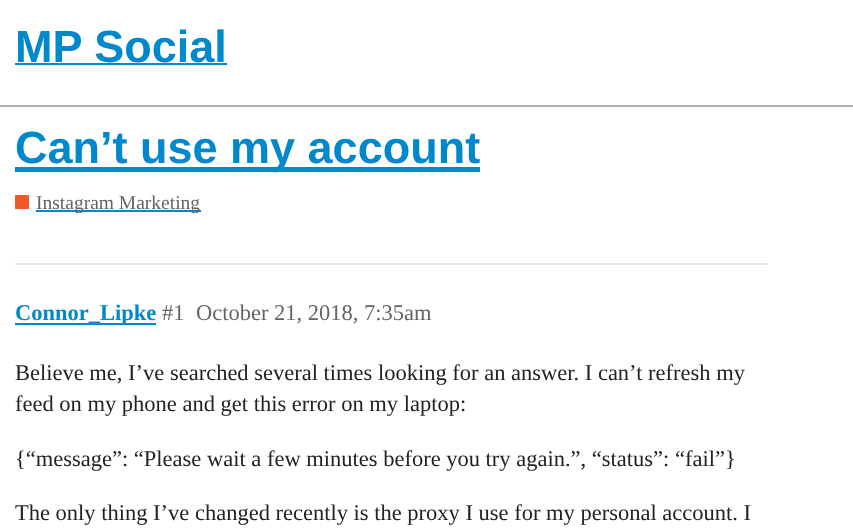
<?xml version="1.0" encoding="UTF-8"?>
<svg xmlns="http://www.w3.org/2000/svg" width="853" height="532">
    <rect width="100%" height="100%" fill="#FFFFFF"/>
    <rect x="0" y="105" width="853" height="2" fill="#AFAFAF"/>
    <text x="15" y="62" font-family="Liberation Sans" font-size="45" font-weight="700" fill="#0088CC">MP Social</text>
    <rect x="15" y="63" width="212" height="2" fill="#0088CC"/>
    <rect x="15" y="167" width="465" height="5" fill="#0088CC"/>
    <text x="15" y="163" font-family="Liberation Sans" font-size="45" font-weight="700" fill="#0088CC">Can’t use my account</text>
    <rect x="15" y="195" width="14" height="14" fill="#F1592A"/>
    <rect x="36" y="210" width="165" height="2" fill="#0088CC"/>
    <text x="36" y="209" font-family="Liberation Serif" font-size="19.5" fill="#646464">Instagram Marketing</text>
    <rect x="15" y="263" width="753" height="2" fill="#E9E9E9"/>
    <rect x="15" y="323" width="141" height="2" fill="#0088CC"/>
    <text x="15" y="320" font-family="Liberation Serif" font-size="22.5" font-weight="700" fill="#0088CC">Connor_Lipke</text>
    <text x="162" y="320" font-family="Liberation Serif" font-size="22.5" fill="#646464">#1</text>
    <text x="196" y="320" font-family="Liberation Serif" font-size="22.5" fill="#646464">October 21, 2018, 7:35am</text>
    <text font-family="Liberation Serif" font-size="22.5" fill="#222222">
        <tspan x="15" y="380">Believe me, I’ve searched several times looking for an answer. I can’t refresh my</tspan>
        <tspan x="15" y="411">feed on my phone and get this error on my laptop:</tspan>
    </text>
    <text x="15" y="466" font-family="Liberation Serif" font-size="22.5" fill="#222222">{“message”: “Please wait a few minutes before you try again.”, “status”: “fail”}</text>
    <text x="15" y="520" font-family="Liberation Serif" font-size="22.5" fill="#222222">The only thing I’ve changed recently is the proxy I use for my personal account. I</text>
</svg>
